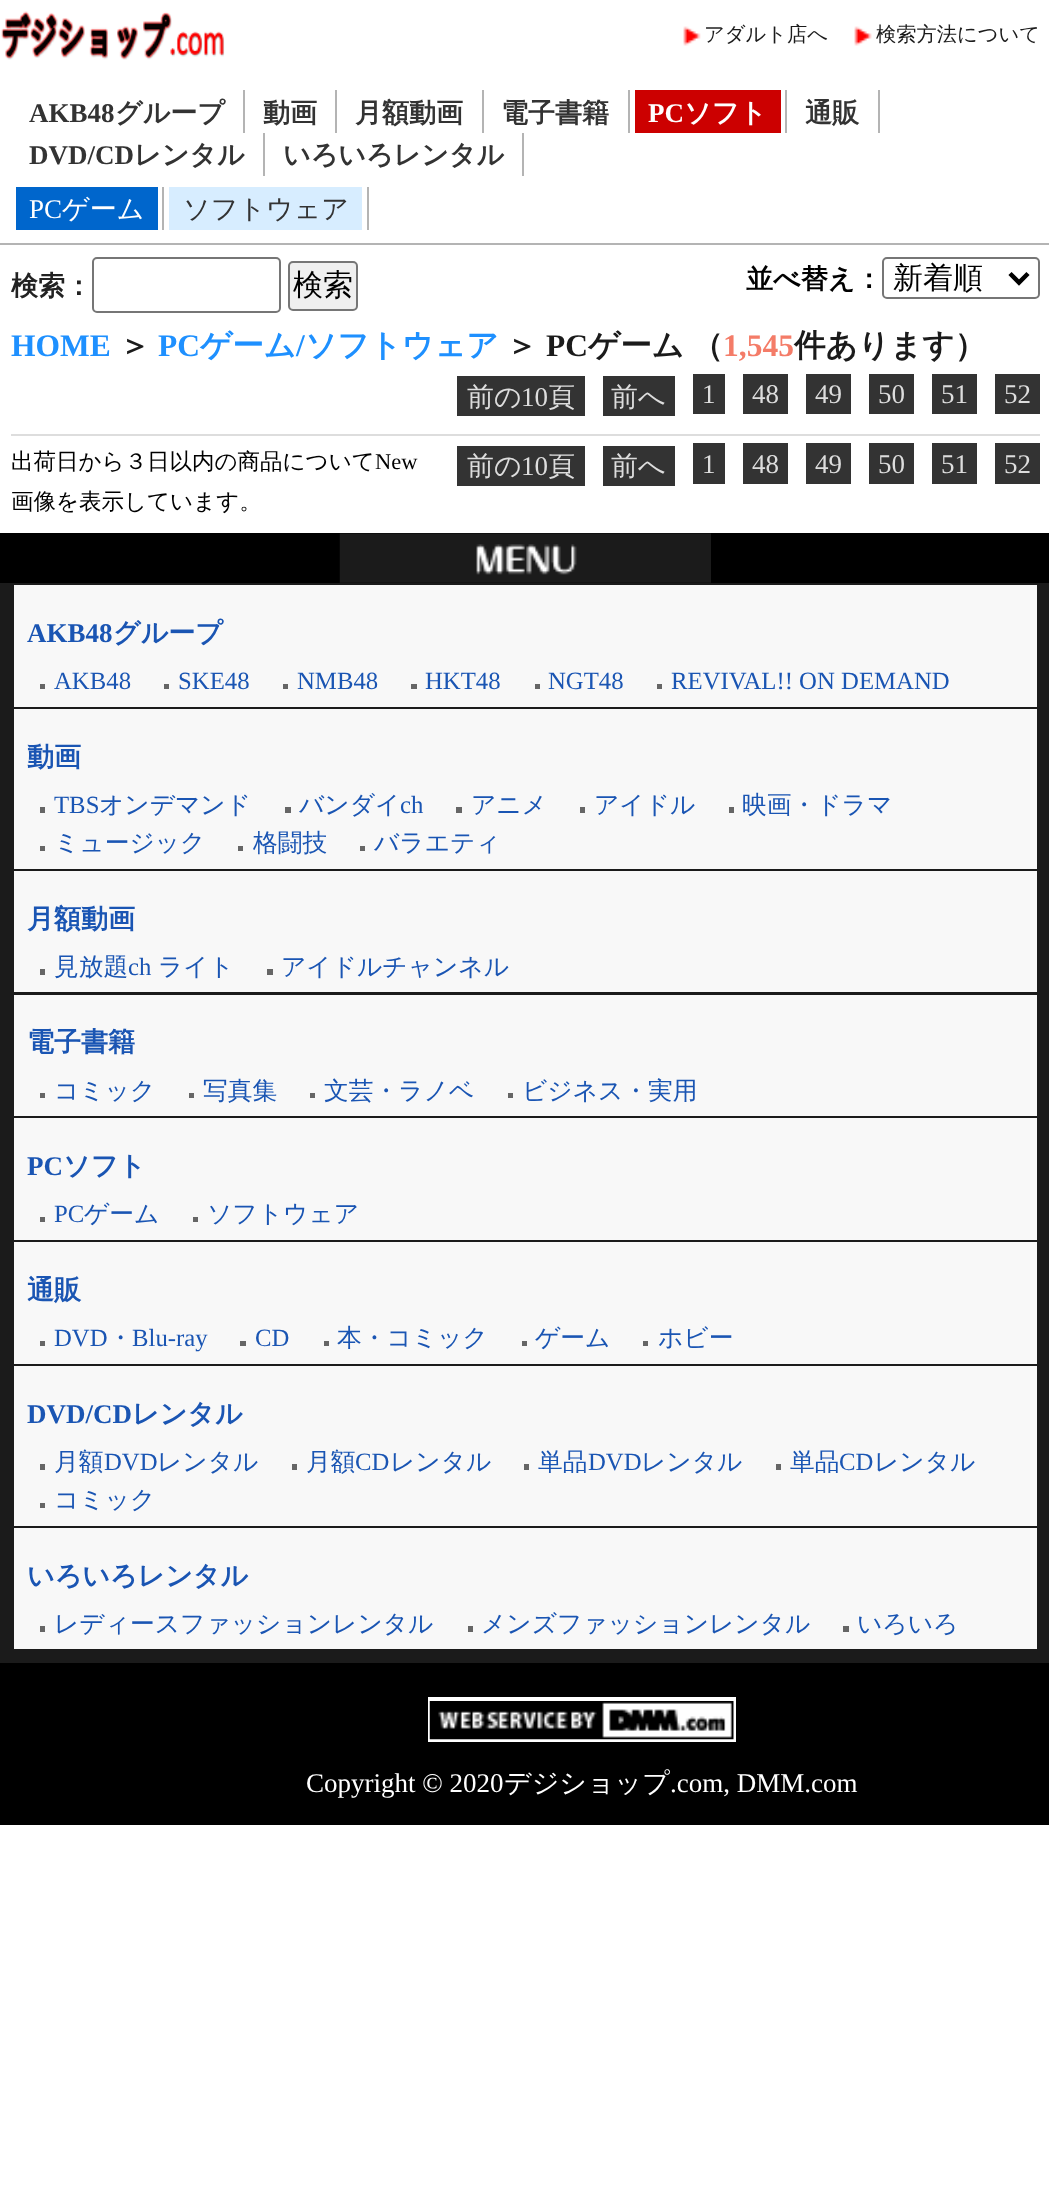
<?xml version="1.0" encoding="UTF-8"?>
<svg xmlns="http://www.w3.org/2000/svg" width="1049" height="2204">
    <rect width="100%" height="100%" fill="#FFFFFF"/>
    <rect x="0" y="243" width="1049" height="2" fill="#B4B4B4"/>
    <image x="1" y="11" width="224" height="49" href="img_01.png"/>
    <image x="683" y="26" width="18" height="20" href="img_02.png"/>
    <text x="704" y="41" font-family="WenQuanYi Zen Hei" font-size="20.25" font-weight="500" fill="#1B1B1B">アダルト店へ</text>
    <image x="854" y="26" width="18" height="20" href="img_03.png"/>
    <text x="876" y="41" font-family="WenQuanYi Zen Hei" font-size="20.25" font-weight="500" fill="#1B1B1B">検索方法について</text>
    <rect x="243" y="90" width="2" height="43" fill="#B4B4B4"/>
    <text x="29" y="122" font-family="Liberation Serif" font-size="27" font-weight="700" fill="#333333">AKB48</text>
    <text x="115" y="122" font-family="WenQuanYi Zen Hei" font-size="27" font-weight="700" fill="#333333">グループ</text>
    <rect x="335" y="90" width="2" height="43" fill="#B4B4B4"/>
    <text x="263" y="122" font-family="WenQuanYi Zen Hei" font-size="27" font-weight="700" fill="#333333">動画</text>
    <rect x="482" y="90" width="2" height="43" fill="#B4B4B4"/>
    <text x="355" y="122" font-family="WenQuanYi Zen Hei" font-size="27" font-weight="700" fill="#333333">月額動画</text>
    <rect x="628" y="90" width="2" height="43" fill="#B4B4B4"/>
    <text x="501" y="122" font-family="WenQuanYi Zen Hei" font-size="27" font-weight="700" fill="#333333">電子書籍</text>
    <rect x="785" y="90" width="2" height="43" fill="#B4B4B4"/>
    <rect x="635" y="90" width="146" height="43" fill="#CC0000"/>
    <text x="648" y="122" font-family="Liberation Serif" font-size="27" font-weight="700" fill="#FFFFFF">PC</text>
    <text x="684" y="122" font-family="WenQuanYi Zen Hei" font-size="27" font-weight="700" fill="#FFFFFF">ソフト</text>
    <rect x="878" y="90" width="2" height="43" fill="#B4B4B4"/>
    <text x="805" y="122" font-family="WenQuanYi Zen Hei" font-size="27" font-weight="700" fill="#333333">通販</text>
    <rect x="263" y="133" width="2" height="43" fill="#B4B4B4"/>
    <text x="29" y="164" font-family="Liberation Serif" font-size="27" font-weight="700" fill="#333333">DVD/CD</text>
    <text x="134" y="164" font-family="WenQuanYi Zen Hei" font-size="27" font-weight="700" fill="#333333">レンタル</text>
    <rect x="522" y="133" width="2" height="43" fill="#B4B4B4"/>
    <text x="283" y="164" font-family="WenQuanYi Zen Hei" font-size="27" font-weight="700" fill="#333333">いろいろレンタル</text>
    <rect x="162" y="187" width="2" height="43" fill="#B4B4B4"/>
    <rect x="16" y="187" width="142" height="43" fill="#0066CC"/>
    <text x="29" y="218" font-family="Liberation Serif" font-size="27" fill="#FFFFFF">PC</text>
    <text x="62" y="218" font-family="WenQuanYi Zen Hei" font-size="27" font-weight="500" fill="#FFFFFF">ゲーム</text>
    <rect x="367" y="187" width="2" height="43" fill="#B4B4B4"/>
    <rect x="169" y="187" width="193" height="43" fill="#D7EDFF"/>
    <text x="183" y="218" font-family="WenQuanYi Zen Hei" font-size="27" font-weight="500" fill="#333333">ソフトウェア</text>
    <text x="11" y="295" font-family="WenQuanYi Zen Hei" font-size="27" font-weight="700" fill="#222222">検索：</text>
    <rect x="93" y="258" width="187" height="54" rx="4" fill="none" stroke="#767676" stroke-width="2"/>
    <rect x="289" y="262" width="68" height="48" rx="4" fill="#EFEFEF" stroke="#767676" stroke-width="2"/>
    <text x="293" y="295" font-family="WenQuanYi Zen Hei" font-size="30" font-weight="500" fill="#000000">検索</text>
    <text x="746" y="288" font-family="WenQuanYi Zen Hei" font-size="27" font-weight="700" fill="#000000">並べ替え：</text>
    <rect x="883" y="258" width="156" height="40" rx="4" fill="none" stroke="#767676" stroke-width="2"/>
    <path d="M 1010 273.5 L 1019 282.5 L 1028 273.5" fill="none" stroke="#000000" stroke-width="4.5"/>
    <text x="893" y="288" font-family="WenQuanYi Zen Hei" font-size="30" font-weight="500" fill="#000000">新着順</text>
    <text x="11" y="356" font-family="Liberation Serif" font-size="31.5" font-weight="700" fill="#1E90FF">HOME</text>
    <text x="119" y="356" font-family="WenQuanYi Zen Hei" font-size="31.5" font-weight="700" fill="#1B1B1B">＞</text>
    <text x="158" y="356" font-family="Liberation Serif" font-size="31.5" font-weight="700" fill="#1E90FF">PC</text>
    <text x="200" y="356" font-family="WenQuanYi Zen Hei" font-size="31.5" font-weight="700" fill="#1E90FF">ゲーム</text>
    <text x="296" y="356" font-family="Liberation Serif" font-size="31.5" font-weight="700" fill="#1E90FF">/</text>
    <text x="305" y="356" font-family="WenQuanYi Zen Hei" font-size="31.5" font-weight="700" fill="#1E90FF">ソフトウェア</text>
    <text x="506" y="356" font-family="WenQuanYi Zen Hei" font-size="31.5" font-weight="700" fill="#1B1B1B">＞</text>
    <text x="546" y="356" font-family="Liberation Serif" font-size="31.5" font-weight="700" fill="#1B1B1B">PC</text>
    <text x="588" y="356" word-spacing="-2" font-family="WenQuanYi Zen Hei" font-size="31.5" font-weight="700" fill="#1B1B1B">ゲーム （</text>
    <text x="723" y="356" font-family="Liberation Serif" font-size="31.5" font-weight="700" fill="#F47C68">1,545</text>
    <text x="794" y="356" font-family="WenQuanYi Zen Hei" font-size="31.5" font-weight="700" fill="#1B1B1B">件あります）</text>
    <rect x="457" y="376" width="128" height="40" fill="#333333"/>
    <text x="467" y="406" font-family="WenQuanYi Zen Hei" font-size="27" font-weight="500" fill="#DDDDDD">前の</text>
    <text x="521" y="406" font-family="Liberation Serif" font-size="27" fill="#DDDDDD">10</text>
    <text x="548" y="406" font-family="WenQuanYi Zen Hei" font-size="27" font-weight="500" fill="#DDDDDD">頁</text>
    <rect x="603" y="376" width="72" height="40" fill="#333333"/>
    <text x="611" y="406" font-family="WenQuanYi Zen Hei" font-size="27" font-weight="500" fill="#DDDDDD">前へ</text>
    <rect x="693" y="374" width="32" height="40" fill="#333333"/>
    <text x="702" y="403" font-family="Liberation Serif" font-size="27" fill="#DDDDDD">1</text>
    <rect x="743" y="374" width="45" height="40" fill="#333333"/>
    <text x="752" y="403" font-family="Liberation Serif" font-size="27" fill="#DDDDDD">48</text>
    <rect x="806" y="374" width="45" height="40" fill="#333333"/>
    <text x="815" y="403" font-family="Liberation Serif" font-size="27" fill="#DDDDDD">49</text>
    <rect x="869" y="374" width="45" height="40" fill="#333333"/>
    <text x="878" y="403" font-family="Liberation Serif" font-size="27" fill="#DDDDDD">50</text>
    <rect x="932" y="374" width="45" height="40" fill="#333333"/>
    <text x="941" y="403" font-family="Liberation Serif" font-size="27" fill="#DDDDDD">51</text>
    <rect x="995" y="374" width="45" height="40" fill="#333333"/>
    <text x="1004" y="403" font-family="Liberation Serif" font-size="27" fill="#DDDDDD">52</text>
    <rect x="11" y="434" width="1029" height="2" fill="#DDDDDD"/>
    <text x="11" y="469" font-family="WenQuanYi Zen Hei" font-size="22.5" font-weight="500" fill="#000000">出荷日から３日以内の商品について</text>
    <text x="375" y="469" font-family="Liberation Serif" font-size="22.5" fill="#000000">New</text>
    <rect x="457" y="446" width="128" height="40" fill="#333333"/>
    <text x="467" y="475" font-family="WenQuanYi Zen Hei" font-size="27" font-weight="500" fill="#DDDDDD">前の</text>
    <text x="521" y="475" font-family="Liberation Serif" font-size="27" fill="#DDDDDD">10</text>
    <text x="548" y="475" font-family="WenQuanYi Zen Hei" font-size="27" font-weight="500" fill="#DDDDDD">頁</text>
    <rect x="603" y="446" width="72" height="40" fill="#333333"/>
    <text x="611" y="475" font-family="WenQuanYi Zen Hei" font-size="27" font-weight="500" fill="#DDDDDD">前へ</text>
    <rect x="693" y="443" width="32" height="41" fill="#333333"/>
    <text x="702" y="473" font-family="Liberation Serif" font-size="27" fill="#DDDDDD">1</text>
    <rect x="743" y="443" width="45" height="41" fill="#333333"/>
    <text x="752" y="473" font-family="Liberation Serif" font-size="27" fill="#DDDDDD">48</text>
    <rect x="806" y="443" width="45" height="41" fill="#333333"/>
    <text x="815" y="473" font-family="Liberation Serif" font-size="27" fill="#DDDDDD">49</text>
    <rect x="869" y="443" width="45" height="41" fill="#333333"/>
    <text x="878" y="473" font-family="Liberation Serif" font-size="27" fill="#DDDDDD">50</text>
    <rect x="932" y="443" width="45" height="41" fill="#333333"/>
    <text x="941" y="473" font-family="Liberation Serif" font-size="27" fill="#DDDDDD">51</text>
    <rect x="995" y="443" width="45" height="41" fill="#333333"/>
    <text x="1004" y="473" font-family="Liberation Serif" font-size="27" fill="#DDDDDD">52</text>
    <text x="11" y="509" font-family="WenQuanYi Zen Hei" font-size="22.5" font-weight="500" fill="#000000">画像を表示しています。</text>
    <rect x="0" y="533" width="1049" height="50" fill="#000000"/>
    <image x="339" y="533" width="372" height="50" href="img_04.png"/>
    <rect x="0" y="583" width="1049" height="1080" fill="#1B1B1B"/>
    <rect x="14" y="585" width="1023" height="122" fill="#F8F8F8"/>
    <text x="27" y="642" font-family="Liberation Serif" font-size="27" font-weight="700" fill="#1A55B3">AKB48</text>
    <text x="113" y="642" font-family="WenQuanYi Zen Hei" font-size="27" font-weight="700" fill="#1A55B3">グループ</text>
    <rect x="40" y="684" width="5" height="5" fill="#666666"/>
    <text x="54" y="689" font-family="Liberation Serif" font-size="24.75" fill="#1A55B3">AKB48</text>
    <rect x="164" y="684" width="5" height="5" fill="#666666"/>
    <text x="178" y="689" font-family="Liberation Serif" font-size="24.75" fill="#1A55B3">SKE48</text>
    <rect x="283" y="684" width="5" height="5" fill="#666666"/>
    <text x="297" y="689" font-family="Liberation Serif" font-size="24.75" fill="#1A55B3">NMB48</text>
    <rect x="411" y="684" width="6" height="5" fill="#666666"/>
    <text x="425" y="689" font-family="Liberation Serif" font-size="24.75" fill="#1A55B3">HKT48</text>
    <rect x="535" y="684" width="5" height="5" fill="#666666"/>
    <text x="548" y="689" font-family="Liberation Serif" font-size="24.75" fill="#1A55B3">NGT48</text>
    <rect x="657" y="684" width="5" height="5" fill="#666666"/>
    <text x="671" y="689" font-family="Liberation Serif" font-size="24.75" fill="#1A55B3">REVIVAL!! ON DEMAND</text>
    <rect x="14" y="709" width="1023" height="160" fill="#F8F8F8"/>
    <text x="27" y="766" font-family="WenQuanYi Zen Hei" font-size="27" font-weight="700" fill="#1A55B3">動画</text>
    <rect x="40" y="807" width="5" height="6" fill="#666666"/>
    <text x="54" y="813" font-family="Liberation Serif" font-size="24.75" fill="#1A55B3">TBS</text>
    <text x="99" y="813" font-family="WenQuanYi Zen Hei" font-size="24.75" font-weight="500" fill="#1A55B3">オンデマンド</text>
    <rect x="285" y="807" width="6" height="6" fill="#666666"/>
    <text x="299" y="813" font-family="WenQuanYi Zen Hei" font-size="24.75" font-weight="500" fill="#1A55B3">バンダイ</text>
    <text x="400" y="813" font-family="Liberation Serif" font-size="24.75" fill="#1A55B3">ch</text>
    <rect x="456" y="807" width="6" height="6" fill="#666666"/>
    <text x="471" y="813" font-family="WenQuanYi Zen Hei" font-size="24.75" font-weight="500" fill="#1A55B3">アニメ</text>
    <rect x="580" y="807" width="5" height="6" fill="#666666"/>
    <text x="594" y="813" font-family="WenQuanYi Zen Hei" font-size="24.75" font-weight="500" fill="#1A55B3">アイドル</text>
    <rect x="729" y="807" width="5" height="6" fill="#666666"/>
    <text x="742" y="813" font-family="WenQuanYi Zen Hei" font-size="24.75" font-weight="500" fill="#1A55B3">映画・ドラマ</text>
    <rect x="40" y="846" width="5" height="5" fill="#666666"/>
    <text x="54" y="851" font-family="WenQuanYi Zen Hei" font-size="24.75" font-weight="500" fill="#1A55B3">ミュージック</text>
    <rect x="238" y="846" width="5" height="5" fill="#666666"/>
    <text x="253" y="851" font-family="WenQuanYi Zen Hei" font-size="24.75" font-weight="500" fill="#1A55B3">格闘技</text>
    <rect x="360" y="846" width="5" height="5" fill="#666666"/>
    <text x="374" y="851" font-family="WenQuanYi Zen Hei" font-size="24.75" font-weight="500" fill="#1A55B3">バラエティ</text>
    <rect x="14" y="871" width="1023" height="121" fill="#F8F8F8"/>
    <text x="27" y="928" font-family="WenQuanYi Zen Hei" font-size="27" font-weight="700" fill="#1A55B3">月額動画</text>
    <rect x="40" y="969" width="5" height="6" fill="#666666"/>
    <text x="54" y="975" font-family="WenQuanYi Zen Hei" font-size="24.75" font-weight="500" fill="#1A55B3">見放題</text>
    <text x="128" y="975" font-family="Liberation Serif" font-size="24.75" fill="#1A55B3">ch</text>
    <text x="158" y="975" font-family="WenQuanYi Zen Hei" font-size="24.75" font-weight="500" fill="#1A55B3">ライト</text>
    <rect x="267" y="969" width="6" height="6" fill="#666666"/>
    <text x="281" y="975" font-family="WenQuanYi Zen Hei" font-size="24.75" font-weight="500" fill="#1A55B3">アイドルチャンネル</text>
    <rect x="14" y="995" width="1023" height="121" fill="#F8F8F8"/>
    <text x="27" y="1051" font-family="WenQuanYi Zen Hei" font-size="27" font-weight="700" fill="#1A55B3">電子書籍</text>
    <rect x="40" y="1093" width="5" height="5" fill="#666666"/>
    <text x="54" y="1099" font-family="WenQuanYi Zen Hei" font-size="24.75" font-weight="500" fill="#1A55B3">コミック</text>
    <rect x="189" y="1093" width="5" height="5" fill="#666666"/>
    <text x="203" y="1099" font-family="WenQuanYi Zen Hei" font-size="24.75" font-weight="500" fill="#1A55B3">写真集</text>
    <rect x="310" y="1093" width="5" height="5" fill="#666666"/>
    <text x="324" y="1099" font-family="WenQuanYi Zen Hei" font-size="24.75" font-weight="500" fill="#1A55B3">文芸・ラノベ</text>
    <rect x="508" y="1093" width="5" height="5" fill="#666666"/>
    <text x="522" y="1099" font-family="WenQuanYi Zen Hei" font-size="24.75" font-weight="500" fill="#1A55B3">ビジネス・実用</text>
    <rect x="14" y="1118" width="1023" height="122" fill="#F8F8F8"/>
    <text x="27" y="1175" font-family="Liberation Serif" font-size="27" font-weight="700" fill="#1A55B3">PC</text>
    <text x="63" y="1175" font-family="WenQuanYi Zen Hei" font-size="27" font-weight="700" fill="#1A55B3">ソフト</text>
    <rect x="40" y="1217" width="5" height="5" fill="#666666"/>
    <text x="54" y="1222" font-family="Liberation Serif" font-size="24.75" fill="#1A55B3">PC</text>
    <text x="84" y="1222" font-family="WenQuanYi Zen Hei" font-size="24.75" font-weight="500" fill="#1A55B3">ゲーム</text>
    <rect x="193" y="1217" width="5" height="5" fill="#666666"/>
    <text x="207" y="1222" font-family="WenQuanYi Zen Hei" font-size="24.75" font-weight="500" fill="#1A55B3">ソフトウェア</text>
    <rect x="14" y="1242" width="1023" height="122" fill="#F8F8F8"/>
    <text x="27" y="1299" font-family="WenQuanYi Zen Hei" font-size="27" font-weight="700" fill="#1A55B3">通販</text>
    <rect x="40" y="1341" width="5" height="5" fill="#666666"/>
    <text x="54" y="1346" font-family="Liberation Serif" font-size="24.75" fill="#1A55B3">DVD</text>
    <text x="108" y="1346" font-family="WenQuanYi Zen Hei" font-size="24.75" font-weight="500" fill="#1A55B3">・</text>
    <text x="132" y="1346" font-family="Liberation Serif" font-size="24.75" fill="#1A55B3">Blu-ray</text>
    <rect x="240" y="1341" width="6" height="5" fill="#666666"/>
    <text x="255" y="1346" font-family="Liberation Serif" font-size="24.75" fill="#1A55B3">CD</text>
    <rect x="324" y="1341" width="5" height="5" fill="#666666"/>
    <text x="337" y="1346" font-family="WenQuanYi Zen Hei" font-size="24.75" font-weight="500" fill="#1A55B3">本・コミック</text>
    <rect x="522" y="1341" width="5" height="5" fill="#666666"/>
    <text x="535" y="1346" font-family="WenQuanYi Zen Hei" font-size="24.75" font-weight="500" fill="#1A55B3">ゲーム</text>
    <rect x="643" y="1341" width="5" height="5" fill="#666666"/>
    <text x="658" y="1346" font-family="WenQuanYi Zen Hei" font-size="24.75" font-weight="500" fill="#1A55B3">ホビー</text>
    <rect x="14" y="1366" width="1023" height="160" fill="#F8F8F8"/>
    <text x="27" y="1423" font-family="Liberation Serif" font-size="27" font-weight="700" fill="#1A55B3">DVD/CD</text>
    <text x="132" y="1423" font-family="WenQuanYi Zen Hei" font-size="27" font-weight="700" fill="#1A55B3">レンタル</text>
    <rect x="40" y="1464" width="5" height="6" fill="#666666"/>
    <text x="54" y="1470" font-family="WenQuanYi Zen Hei" font-size="24.75" font-weight="500" fill="#1A55B3">月額</text>
    <text x="104" y="1470" font-family="Liberation Serif" font-size="24.75" fill="#1A55B3">DVD</text>
    <text x="157" y="1470" font-family="WenQuanYi Zen Hei" font-size="24.75" font-weight="500" fill="#1A55B3">レンタル</text>
    <rect x="292" y="1464" width="5" height="6" fill="#666666"/>
    <text x="306" y="1470" font-family="WenQuanYi Zen Hei" font-size="24.75" font-weight="500" fill="#1A55B3">月額</text>
    <text x="355" y="1470" font-family="Liberation Serif" font-size="24.75" fill="#1A55B3">CD</text>
    <text x="390" y="1470" font-family="WenQuanYi Zen Hei" font-size="24.75" font-weight="500" fill="#1A55B3">レンタル</text>
    <rect x="524" y="1464" width="5" height="6" fill="#666666"/>
    <text x="538" y="1470" font-family="WenQuanYi Zen Hei" font-size="24.75" font-weight="500" fill="#1A55B3">単品</text>
    <text x="588" y="1470" font-family="Liberation Serif" font-size="24.75" fill="#1A55B3">DVD</text>
    <text x="641" y="1470" font-family="WenQuanYi Zen Hei" font-size="24.75" font-weight="500" fill="#1A55B3">レンタル</text>
    <rect x="776" y="1464" width="5" height="6" fill="#666666"/>
    <text x="790" y="1470" font-family="WenQuanYi Zen Hei" font-size="24.75" font-weight="500" fill="#1A55B3">単品</text>
    <text x="839" y="1470" font-family="Liberation Serif" font-size="24.75" fill="#1A55B3">CD</text>
    <text x="874" y="1470" font-family="WenQuanYi Zen Hei" font-size="24.75" font-weight="500" fill="#1A55B3">レンタル</text>
    <rect x="40" y="1503" width="5" height="5" fill="#666666"/>
    <text x="54" y="1508" font-family="WenQuanYi Zen Hei" font-size="24.75" font-weight="500" fill="#1A55B3">コミック</text>
    <rect x="14" y="1528" width="1023" height="121" fill="#F8F8F8"/>
    <text x="27" y="1585" font-family="WenQuanYi Zen Hei" font-size="27" font-weight="700" fill="#1A55B3">いろいろレンタル</text>
    <rect x="40" y="1626" width="5" height="6" fill="#666666"/>
    <text x="54" y="1632" font-family="WenQuanYi Zen Hei" font-size="24.75" font-weight="500" fill="#1A55B3">レディースファッションレンタル</text>
    <rect x="468" y="1626" width="5" height="6" fill="#666666"/>
    <text x="481" y="1632" font-family="WenQuanYi Zen Hei" font-size="24.75" font-weight="500" fill="#1A55B3">メンズファッションレンタル</text>
    <rect x="843" y="1626" width="6" height="6" fill="#666666"/>
    <text x="857" y="1632" font-family="WenQuanYi Zen Hei" font-size="24.75" font-weight="500" fill="#1A55B3">いろいろ</text>
    <rect x="0" y="1663" width="1049" height="162" fill="#000000"/>
    <rect x="428" y="1697" width="308" height="45" fill="#FFFFFF"/>
    <image x="429" y="1701" width="305" height="39" href="img_05.png"/>
    <text x="306" y="1792" font-family="Liberation Serif" font-size="27" fill="#FFFFFF">Copyright © 2020</text>
    <text x="504" y="1792" font-family="WenQuanYi Zen Hei" font-size="27" font-weight="500" fill="#FFFFFF">デジショップ</text>
    <text x="670" y="1792" font-family="Liberation Serif" font-size="27" fill="#FFFFFF">.com, DMM.com</text>
</svg>
